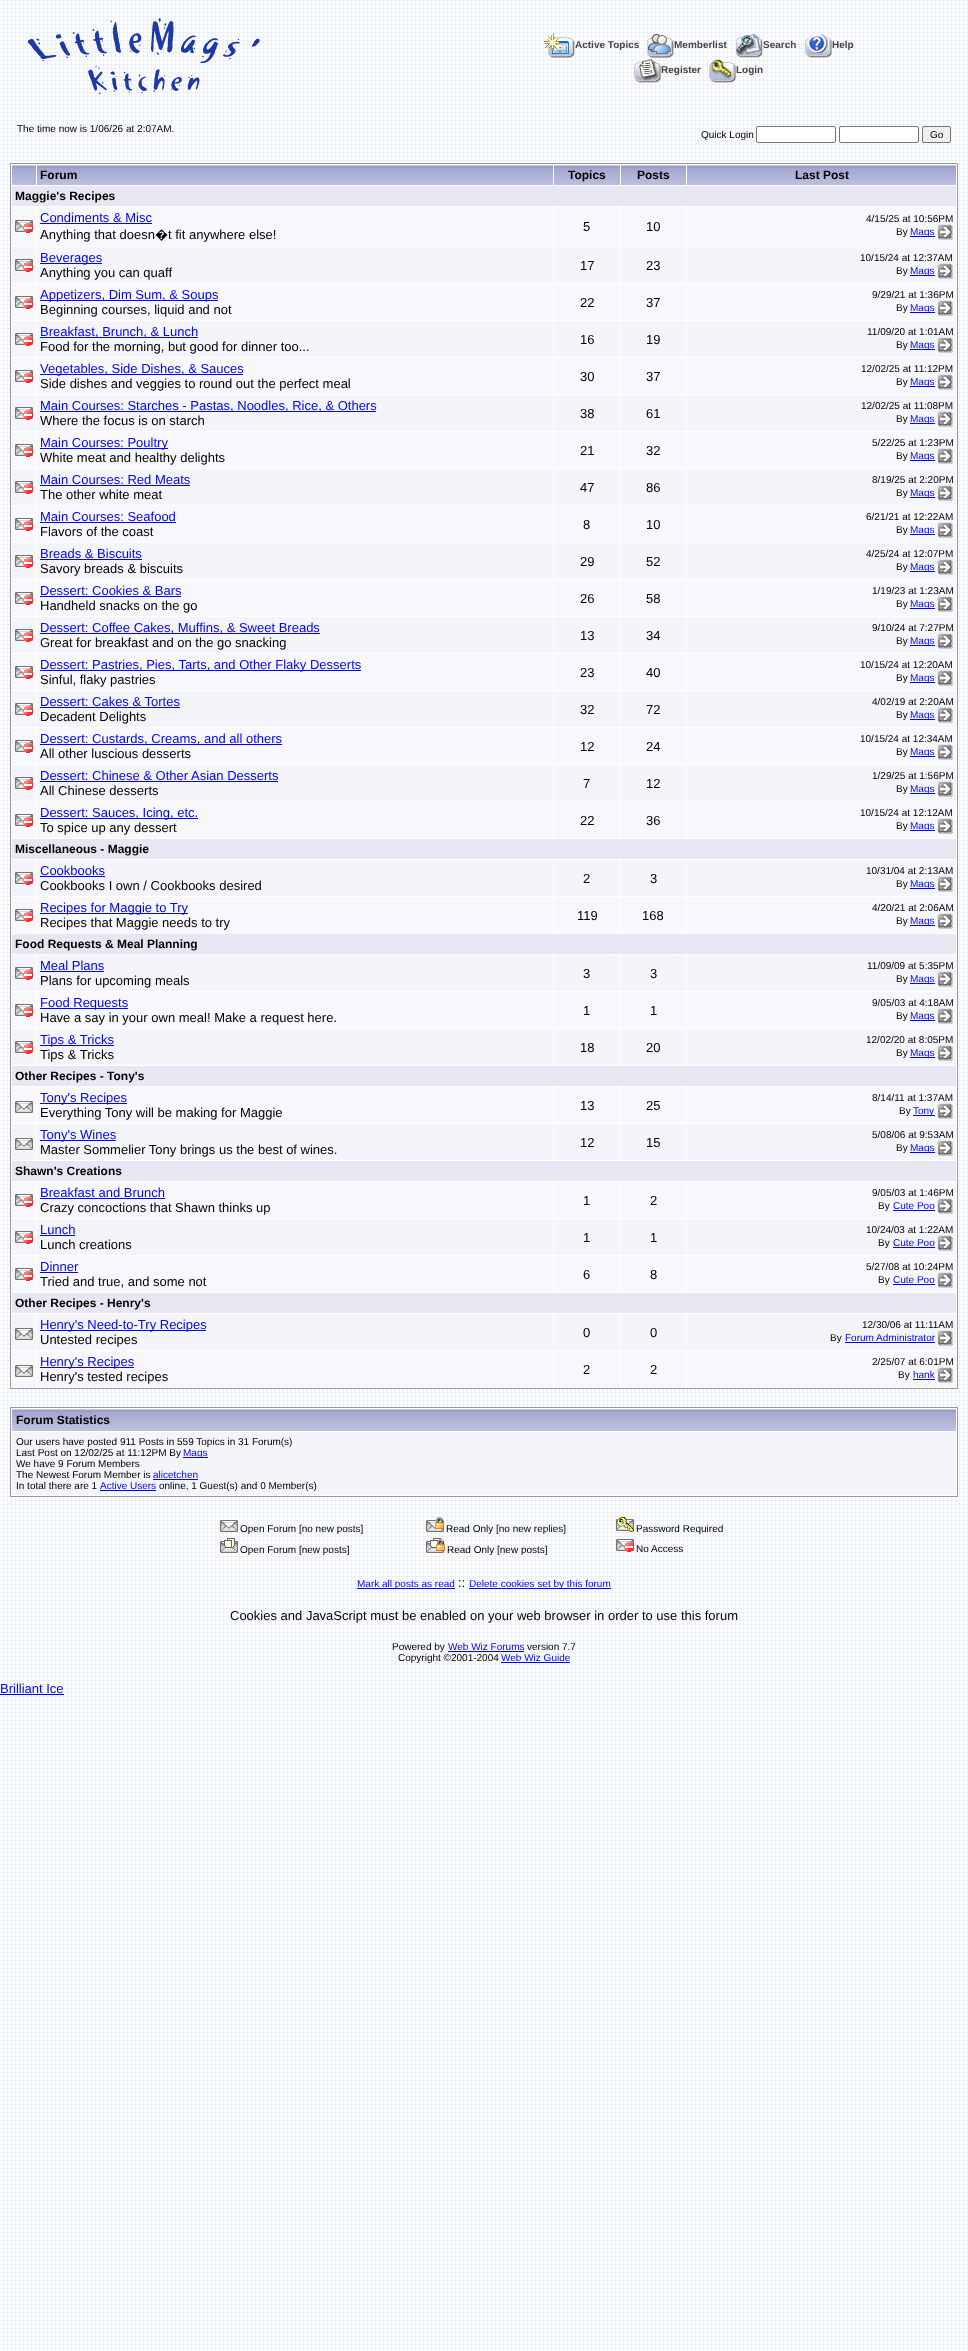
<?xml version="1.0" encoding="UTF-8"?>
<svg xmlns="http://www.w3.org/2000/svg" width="968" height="2351">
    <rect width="100%" height="100%" fill="#FFFFFF"/>
    <image x="0" y="0" width="968" height="2351" href="img_01.png"/>
    <image x="27" y="18" width="233" height="77" href="img_02.png"/>
    <image x="544" y="33" width="31" height="25" href="img_03.png"/>
    <text x="575" y="48" font-family="Liberation Sans" font-size="10" font-weight="700" fill="#444444">Active Topics</text>
    <image x="647" y="34" width="27" height="24" href="img_04.png"/>
    <text x="674" y="48" font-family="Liberation Sans" font-size="10" font-weight="700" fill="#444444">Memberlist</text>
    <image x="736" y="33" width="27" height="25" href="img_05.png"/>
    <text x="763" y="48" font-family="Liberation Sans" font-size="10" font-weight="700" fill="#444444">Search</text>
    <image x="805" y="33" width="27" height="25" href="img_06.png"/>
    <text x="832" y="48" font-family="Liberation Sans" font-size="10" font-weight="700" fill="#444444">Help</text>
    <image x="634" y="59" width="27" height="24" href="img_07.png"/>
    <text x="661" y="73" font-family="Liberation Sans" font-size="10" font-weight="700" fill="#444444">Register</text>
    <image x="709" y="59" width="27" height="24" href="img_08.png"/>
    <text x="736" y="73" font-family="Liberation Sans" font-size="10" font-weight="700" fill="#444444">Login</text>
    <text x="17" y="132" font-family="Liberation Sans" font-size="10" fill="#000000">The time now is 1/06/26 at 2:07AM.</text>
    <text x="701" y="138" font-family="Liberation Sans" font-size="10" fill="#000000">Quick Login</text>
    <rect x="756.5" y="126.5" width="79" height="16" rx="1.5" fill="#FFFFFF" stroke="#767676"/>
    <rect x="839.5" y="126.5" width="79" height="16" rx="1.5" fill="#FFFFFF" stroke="#767676"/>
    <rect x="922.5" y="126.5" width="28" height="16" rx="1.5" fill="#EFEFEF" stroke="#767676"/>
    <text x="930" y="138" font-family="Liberation Sans" font-size="10" fill="#000000">Go</text>
    <rect x="10" y="163" width="948" height="1226" fill="#999999"/>
    <rect x="11" y="164" width="946" height="1224" fill="#FFFFFF"/>
    <image x="12" y="165" width="24" height="20" href="img_09.png"/>
    <image x="37" y="165" width="516" height="20" href="img_10.png"/>
    <text x="40" y="179" font-family="Liberation Sans" font-size="12" font-weight="700" fill="#000000">Forum</text>
    <image x="554" y="165" width="66" height="20" href="img_11.png"/>
    <text x="568" y="179" font-family="Liberation Sans" font-size="12" font-weight="700" fill="#000000">Topics</text>
    <image x="621" y="165" width="65" height="20" href="img_12.png"/>
    <text x="637" y="179" font-family="Liberation Sans" font-size="12" font-weight="700" fill="#000000">Posts</text>
    <image x="687" y="165" width="269" height="20" href="img_13.png"/>
    <text x="795" y="179" font-family="Liberation Sans" font-size="12" font-weight="700" fill="#000000">Last Post</text>
    <rect x="12" y="186" width="944" height="20" fill="#E6E7F2"/>
    <text x="15" y="200" font-family="Liberation Sans" font-size="12" font-weight="700" fill="#000000">Maggie's Recipes</text>
    <rect x="12" y="207" width="24" height="39" fill="#F8F8FC"/>
    <image x="15" y="220" width="18" height="13" href="img_14.png"/>
    <rect x="37" y="207" width="516" height="39" fill="#F8F8FC"/>
    <text x="40" y="222" font-family="Liberation Sans" font-size="13" fill="#0000FF">Condiments &amp; Misc</text>
    <rect x="40" y="223" width="112" height="1" fill="#0000FF"/>
    <text x="40" y="239" font-family="Liberation Sans" font-size="13" fill="#000000">Anything that doesn</text>
    <text x="155" y="239" font-family="Noto Sans" font-size="13" fill="#000000">�</text>
    <text x="168" y="239" font-family="Liberation Sans" font-size="13" fill="#000000">t fit anywhere else!</text>
    <rect x="554" y="207" width="66" height="39" fill="#F8F8FC"/>
    <text x="583" y="231" font-family="Liberation Sans" font-size="13" fill="#000000">5</text>
    <rect x="621" y="207" width="65" height="39" fill="#F8F8FC"/>
    <text x="646" y="231" font-family="Liberation Sans" font-size="13" fill="#000000">10</text>
    <rect x="687" y="207" width="269" height="39" fill="#F8F8FC"/>
    <text x="866" y="222" font-family="Liberation Sans" font-size="10" fill="#000000">4/15/25 at 10:56PM</text>
    <text x="896" y="235" font-family="Liberation Sans" font-size="10" fill="#000000">By</text>
    <rect x="910" y="236" width="25" height="1" fill="#0000FF"/>
    <text x="910" y="235" font-family="Liberation Sans" font-size="10" fill="#0000FF">Mags</text>
    <image x="937" y="224" width="16" height="16" href="img_15.png"/>
    <rect x="12" y="247" width="24" height="36" fill="#F4F4FB"/>
    <image x="15" y="259" width="18" height="13" href="img_16.png"/>
    <rect x="37" y="247" width="516" height="36" fill="#F4F4FB"/>
    <rect x="40" y="263" width="62" height="1" fill="#0000FF"/>
    <text x="40" y="262" font-family="Liberation Sans" font-size="13" fill="#0000FF">Beverages</text>
    <text x="40" y="277" font-family="Liberation Sans" font-size="13" fill="#000000">Anything you can quaff</text>
    <rect x="554" y="247" width="66" height="36" fill="#F4F4FB"/>
    <text x="580" y="270" font-family="Liberation Sans" font-size="13" fill="#000000">17</text>
    <rect x="621" y="247" width="65" height="36" fill="#F4F4FB"/>
    <text x="646" y="270" font-family="Liberation Sans" font-size="13" fill="#000000">23</text>
    <rect x="687" y="247" width="269" height="36" fill="#F4F4FB"/>
    <text x="860" y="261" font-family="Liberation Sans" font-size="10" fill="#000000">10/15/24 at 12:37AM</text>
    <text x="896" y="274" font-family="Liberation Sans" font-size="10" fill="#000000">By</text>
    <rect x="910" y="275" width="25" height="1" fill="#0000FF"/>
    <text x="910" y="274" font-family="Liberation Sans" font-size="10" fill="#0000FF">Mags</text>
    <image x="937" y="263" width="16" height="16" href="img_17.png"/>
    <rect x="12" y="284" width="24" height="36" fill="#F8F8FC"/>
    <image x="15" y="296" width="18" height="13" href="img_14.png"/>
    <rect x="37" y="284" width="516" height="36" fill="#F8F8FC"/>
    <rect x="40" y="300" width="178" height="1" fill="#0000FF"/>
    <text x="40" y="299" font-family="Liberation Sans" font-size="13" fill="#0000FF">Appetizers, Dim Sum, &amp; Soups</text>
    <text x="40" y="314" font-family="Liberation Sans" font-size="13" fill="#000000">Beginning courses, liquid and not</text>
    <rect x="554" y="284" width="66" height="36" fill="#F8F8FC"/>
    <text x="580" y="307" font-family="Liberation Sans" font-size="13" fill="#000000">22</text>
    <rect x="621" y="284" width="65" height="36" fill="#F8F8FC"/>
    <text x="646" y="307" font-family="Liberation Sans" font-size="13" fill="#000000">37</text>
    <rect x="687" y="284" width="269" height="36" fill="#F8F8FC"/>
    <text x="872" y="298" font-family="Liberation Sans" font-size="10" fill="#000000">9/29/21 at 1:36PM</text>
    <text x="896" y="311" font-family="Liberation Sans" font-size="10" fill="#000000">By</text>
    <rect x="910" y="312" width="25" height="1" fill="#0000FF"/>
    <text x="910" y="311" font-family="Liberation Sans" font-size="10" fill="#0000FF">Mags</text>
    <image x="937" y="300" width="16" height="16" href="img_15.png"/>
    <rect x="12" y="321" width="24" height="36" fill="#F4F4FB"/>
    <image x="15" y="333" width="18" height="13" href="img_16.png"/>
    <rect x="37" y="321" width="516" height="36" fill="#F4F4FB"/>
    <rect x="40" y="337" width="158" height="1" fill="#0000FF"/>
    <text x="40" y="336" font-family="Liberation Sans" font-size="13" fill="#0000FF">Breakfast, Brunch, &amp; Lunch</text>
    <text x="40" y="351" font-family="Liberation Sans" font-size="13" fill="#000000">Food for the morning, but good for dinner too...</text>
    <rect x="554" y="321" width="66" height="36" fill="#F4F4FB"/>
    <text x="580" y="344" font-family="Liberation Sans" font-size="13" fill="#000000">16</text>
    <rect x="621" y="321" width="65" height="36" fill="#F4F4FB"/>
    <text x="646" y="344" font-family="Liberation Sans" font-size="13" fill="#000000">19</text>
    <rect x="687" y="321" width="269" height="36" fill="#F4F4FB"/>
    <text x="867" y="335" font-family="Liberation Sans" font-size="10" fill="#000000">11/09/20 at 1:01AM</text>
    <text x="896" y="348" font-family="Liberation Sans" font-size="10" fill="#000000">By</text>
    <rect x="910" y="349" width="25" height="1" fill="#0000FF"/>
    <text x="910" y="348" font-family="Liberation Sans" font-size="10" fill="#0000FF">Mags</text>
    <image x="937" y="337" width="16" height="16" href="img_17.png"/>
    <rect x="12" y="358" width="24" height="36" fill="#F8F8FC"/>
    <image x="15" y="370" width="18" height="13" href="img_14.png"/>
    <rect x="37" y="358" width="516" height="36" fill="#F8F8FC"/>
    <rect x="40" y="374" width="203" height="1" fill="#0000FF"/>
    <text x="40" y="373" font-family="Liberation Sans" font-size="13" fill="#0000FF">Vegetables, Side Dishes, &amp; Sauces</text>
    <text x="40" y="388" font-family="Liberation Sans" font-size="13" fill="#000000">Side dishes and veggies to round out the perfect meal</text>
    <rect x="554" y="358" width="66" height="36" fill="#F8F8FC"/>
    <text x="580" y="381" font-family="Liberation Sans" font-size="13" fill="#000000">30</text>
    <rect x="621" y="358" width="65" height="36" fill="#F8F8FC"/>
    <text x="646" y="381" font-family="Liberation Sans" font-size="13" fill="#000000">37</text>
    <rect x="687" y="358" width="269" height="36" fill="#F8F8FC"/>
    <text x="861" y="372" font-family="Liberation Sans" font-size="10" fill="#000000">12/02/25 at 11:12PM</text>
    <text x="896" y="385" font-family="Liberation Sans" font-size="10" fill="#000000">By</text>
    <rect x="910" y="386" width="25" height="1" fill="#0000FF"/>
    <text x="910" y="385" font-family="Liberation Sans" font-size="10" fill="#0000FF">Mags</text>
    <image x="937" y="374" width="16" height="16" href="img_15.png"/>
    <rect x="12" y="395" width="24" height="36" fill="#F4F4FB"/>
    <image x="15" y="407" width="18" height="13" href="img_16.png"/>
    <rect x="37" y="395" width="516" height="36" fill="#F4F4FB"/>
    <rect x="40" y="411" width="336" height="1" fill="#0000FF"/>
    <text x="40" y="410" font-family="Liberation Sans" font-size="13" fill="#0000FF">Main Courses: Starches - Pastas, Noodles, Rice, &amp; Others</text>
    <text x="40" y="425" font-family="Liberation Sans" font-size="13" fill="#000000">Where the focus is on starch</text>
    <rect x="554" y="395" width="66" height="36" fill="#F4F4FB"/>
    <text x="580" y="418" font-family="Liberation Sans" font-size="13" fill="#000000">38</text>
    <rect x="621" y="395" width="65" height="36" fill="#F4F4FB"/>
    <text x="646" y="418" font-family="Liberation Sans" font-size="13" fill="#000000">61</text>
    <rect x="687" y="395" width="269" height="36" fill="#F4F4FB"/>
    <text x="861" y="409" font-family="Liberation Sans" font-size="10" fill="#000000">12/02/25 at 11:08PM</text>
    <text x="896" y="422" font-family="Liberation Sans" font-size="10" fill="#000000">By</text>
    <rect x="910" y="423" width="25" height="1" fill="#0000FF"/>
    <text x="910" y="422" font-family="Liberation Sans" font-size="10" fill="#0000FF">Mags</text>
    <image x="937" y="411" width="16" height="16" href="img_17.png"/>
    <rect x="12" y="432" width="24" height="36" fill="#F8F8FC"/>
    <image x="15" y="444" width="18" height="13" href="img_14.png"/>
    <rect x="37" y="432" width="516" height="36" fill="#F8F8FC"/>
    <rect x="40" y="448" width="128" height="1" fill="#0000FF"/>
    <text x="40" y="447" font-family="Liberation Sans" font-size="13" fill="#0000FF">Main Courses: Poultry</text>
    <text x="40" y="462" font-family="Liberation Sans" font-size="13" fill="#000000">White meat and healthy delights</text>
    <rect x="554" y="432" width="66" height="36" fill="#F8F8FC"/>
    <text x="580" y="455" font-family="Liberation Sans" font-size="13" fill="#000000">21</text>
    <rect x="621" y="432" width="65" height="36" fill="#F8F8FC"/>
    <text x="646" y="455" font-family="Liberation Sans" font-size="13" fill="#000000">32</text>
    <rect x="687" y="432" width="269" height="36" fill="#F8F8FC"/>
    <text x="872" y="446" font-family="Liberation Sans" font-size="10" fill="#000000">5/22/25 at 1:23PM</text>
    <text x="896" y="459" font-family="Liberation Sans" font-size="10" fill="#000000">By</text>
    <rect x="910" y="460" width="25" height="1" fill="#0000FF"/>
    <text x="910" y="459" font-family="Liberation Sans" font-size="10" fill="#0000FF">Mags</text>
    <image x="937" y="448" width="16" height="16" href="img_15.png"/>
    <rect x="12" y="469" width="24" height="36" fill="#F4F4FB"/>
    <image x="15" y="481" width="18" height="13" href="img_16.png"/>
    <rect x="37" y="469" width="516" height="36" fill="#F4F4FB"/>
    <text x="40" y="484" font-family="Liberation Sans" font-size="13" fill="#0000FF">Main Courses: Red Meats</text>
    <rect x="40" y="485" width="150" height="1" fill="#0000FF"/>
    <text x="40" y="499" font-family="Liberation Sans" font-size="13" fill="#000000">The other white meat</text>
    <rect x="554" y="469" width="66" height="36" fill="#F4F4FB"/>
    <text x="580" y="492" font-family="Liberation Sans" font-size="13" fill="#000000">47</text>
    <rect x="621" y="469" width="65" height="36" fill="#F4F4FB"/>
    <text x="646" y="492" font-family="Liberation Sans" font-size="13" fill="#000000">86</text>
    <rect x="687" y="469" width="269" height="36" fill="#F4F4FB"/>
    <text x="872" y="483" font-family="Liberation Sans" font-size="10" fill="#000000">8/19/25 at 2:20PM</text>
    <text x="896" y="496" font-family="Liberation Sans" font-size="10" fill="#000000">By</text>
    <rect x="910" y="497" width="25" height="1" fill="#0000FF"/>
    <text x="910" y="496" font-family="Liberation Sans" font-size="10" fill="#0000FF">Mags</text>
    <image x="937" y="485" width="16" height="16" href="img_17.png"/>
    <rect x="12" y="506" width="24" height="36" fill="#F8F8FC"/>
    <image x="15" y="518" width="18" height="13" href="img_14.png"/>
    <rect x="37" y="506" width="516" height="36" fill="#F8F8FC"/>
    <text x="40" y="521" font-family="Liberation Sans" font-size="13" fill="#0000FF">Main Courses: Seafood</text>
    <rect x="40" y="522" width="136" height="1" fill="#0000FF"/>
    <text x="40" y="536" font-family="Liberation Sans" font-size="13" fill="#000000">Flavors of the coast</text>
    <rect x="554" y="506" width="66" height="36" fill="#F8F8FC"/>
    <text x="583" y="529" font-family="Liberation Sans" font-size="13" fill="#000000">8</text>
    <rect x="621" y="506" width="65" height="36" fill="#F8F8FC"/>
    <text x="646" y="529" font-family="Liberation Sans" font-size="13" fill="#000000">10</text>
    <rect x="687" y="506" width="269" height="36" fill="#F8F8FC"/>
    <text x="866" y="520" font-family="Liberation Sans" font-size="10" fill="#000000">6/21/21 at 12:22AM</text>
    <text x="896" y="533" font-family="Liberation Sans" font-size="10" fill="#000000">By</text>
    <rect x="910" y="534" width="25" height="1" fill="#0000FF"/>
    <text x="910" y="533" font-family="Liberation Sans" font-size="10" fill="#0000FF">Mags</text>
    <image x="937" y="522" width="16" height="16" href="img_15.png"/>
    <rect x="12" y="543" width="24" height="36" fill="#F4F4FB"/>
    <image x="15" y="555" width="18" height="13" href="img_16.png"/>
    <rect x="37" y="543" width="516" height="36" fill="#F4F4FB"/>
    <text x="40" y="558" font-family="Liberation Sans" font-size="13" fill="#0000FF">Breads &amp; Biscuits</text>
    <rect x="40" y="559" width="102" height="1" fill="#0000FF"/>
    <text x="40" y="573" font-family="Liberation Sans" font-size="13" fill="#000000">Savory breads &amp; biscuits</text>
    <rect x="554" y="543" width="66" height="36" fill="#F4F4FB"/>
    <text x="580" y="566" font-family="Liberation Sans" font-size="13" fill="#000000">29</text>
    <rect x="621" y="543" width="65" height="36" fill="#F4F4FB"/>
    <text x="646" y="566" font-family="Liberation Sans" font-size="13" fill="#000000">52</text>
    <rect x="687" y="543" width="269" height="36" fill="#F4F4FB"/>
    <text x="866" y="557" font-family="Liberation Sans" font-size="10" fill="#000000">4/25/24 at 12:07PM</text>
    <text x="896" y="570" font-family="Liberation Sans" font-size="10" fill="#000000">By</text>
    <rect x="910" y="571" width="25" height="1" fill="#0000FF"/>
    <text x="910" y="570" font-family="Liberation Sans" font-size="10" fill="#0000FF">Mags</text>
    <image x="937" y="559" width="16" height="16" href="img_17.png"/>
    <rect x="12" y="580" width="24" height="36" fill="#F8F8FC"/>
    <image x="15" y="592" width="18" height="13" href="img_14.png"/>
    <rect x="37" y="580" width="516" height="36" fill="#F8F8FC"/>
    <text x="40" y="595" font-family="Liberation Sans" font-size="13" fill="#0000FF">Dessert: Cookies &amp; Bars</text>
    <rect x="40" y="596" width="141" height="1" fill="#0000FF"/>
    <text x="40" y="610" font-family="Liberation Sans" font-size="13" fill="#000000">Handheld snacks on the go</text>
    <rect x="554" y="580" width="66" height="36" fill="#F8F8FC"/>
    <text x="580" y="603" font-family="Liberation Sans" font-size="13" fill="#000000">26</text>
    <rect x="621" y="580" width="65" height="36" fill="#F8F8FC"/>
    <text x="646" y="603" font-family="Liberation Sans" font-size="13" fill="#000000">58</text>
    <rect x="687" y="580" width="269" height="36" fill="#F8F8FC"/>
    <text x="872" y="594" font-family="Liberation Sans" font-size="10" fill="#000000">1/19/23 at 1:23AM</text>
    <text x="896" y="607" font-family="Liberation Sans" font-size="10" fill="#000000">By</text>
    <rect x="910" y="608" width="25" height="1" fill="#0000FF"/>
    <text x="910" y="607" font-family="Liberation Sans" font-size="10" fill="#0000FF">Mags</text>
    <image x="937" y="596" width="16" height="16" href="img_15.png"/>
    <rect x="12" y="617" width="24" height="36" fill="#F4F4FB"/>
    <image x="15" y="629" width="18" height="13" href="img_16.png"/>
    <rect x="37" y="617" width="516" height="36" fill="#F4F4FB"/>
    <rect x="40" y="633" width="280" height="1" fill="#0000FF"/>
    <text x="40" y="632" font-family="Liberation Sans" font-size="13" fill="#0000FF">Dessert: Coffee Cakes, Muffins, &amp; Sweet Breads</text>
    <text x="40" y="647" font-family="Liberation Sans" font-size="13" fill="#000000">Great for breakfast and on the go snacking</text>
    <rect x="554" y="617" width="66" height="36" fill="#F4F4FB"/>
    <text x="580" y="640" font-family="Liberation Sans" font-size="13" fill="#000000">13</text>
    <rect x="621" y="617" width="65" height="36" fill="#F4F4FB"/>
    <text x="646" y="640" font-family="Liberation Sans" font-size="13" fill="#000000">34</text>
    <rect x="687" y="617" width="269" height="36" fill="#F4F4FB"/>
    <text x="872" y="631" font-family="Liberation Sans" font-size="10" fill="#000000">9/10/24 at 7:27PM</text>
    <text x="896" y="644" font-family="Liberation Sans" font-size="10" fill="#000000">By</text>
    <rect x="910" y="645" width="25" height="1" fill="#0000FF"/>
    <text x="910" y="644" font-family="Liberation Sans" font-size="10" fill="#0000FF">Mags</text>
    <image x="937" y="633" width="16" height="16" href="img_17.png"/>
    <rect x="12" y="654" width="24" height="36" fill="#F8F8FC"/>
    <image x="15" y="666" width="18" height="13" href="img_14.png"/>
    <rect x="37" y="654" width="516" height="36" fill="#F8F8FC"/>
    <rect x="40" y="670" width="321" height="1" fill="#0000FF"/>
    <text x="40" y="669" font-family="Liberation Sans" font-size="13" fill="#0000FF">Dessert: Pastries, Pies, Tarts, and Other Flaky Desserts</text>
    <text x="40" y="684" font-family="Liberation Sans" font-size="13" fill="#000000">Sinful, flaky pastries</text>
    <rect x="554" y="654" width="66" height="36" fill="#F8F8FC"/>
    <text x="580" y="677" font-family="Liberation Sans" font-size="13" fill="#000000">23</text>
    <rect x="621" y="654" width="65" height="36" fill="#F8F8FC"/>
    <text x="646" y="677" font-family="Liberation Sans" font-size="13" fill="#000000">40</text>
    <rect x="687" y="654" width="269" height="36" fill="#F8F8FC"/>
    <text x="860" y="668" font-family="Liberation Sans" font-size="10" fill="#000000">10/15/24 at 12:20AM</text>
    <text x="896" y="681" font-family="Liberation Sans" font-size="10" fill="#000000">By</text>
    <rect x="910" y="682" width="25" height="1" fill="#0000FF"/>
    <text x="910" y="681" font-family="Liberation Sans" font-size="10" fill="#0000FF">Mags</text>
    <image x="937" y="670" width="16" height="16" href="img_15.png"/>
    <rect x="12" y="691" width="24" height="36" fill="#F4F4FB"/>
    <image x="15" y="703" width="18" height="13" href="img_16.png"/>
    <rect x="37" y="691" width="516" height="36" fill="#F4F4FB"/>
    <text x="40" y="706" font-family="Liberation Sans" font-size="13" fill="#0000FF">Dessert: Cakes &amp; Tortes</text>
    <rect x="40" y="707" width="140" height="1" fill="#0000FF"/>
    <text x="40" y="721" font-family="Liberation Sans" font-size="13" fill="#000000">Decadent Delights</text>
    <rect x="554" y="691" width="66" height="36" fill="#F4F4FB"/>
    <text x="580" y="714" font-family="Liberation Sans" font-size="13" fill="#000000">32</text>
    <rect x="621" y="691" width="65" height="36" fill="#F4F4FB"/>
    <text x="646" y="714" font-family="Liberation Sans" font-size="13" fill="#000000">72</text>
    <rect x="687" y="691" width="269" height="36" fill="#F4F4FB"/>
    <text x="872" y="705" font-family="Liberation Sans" font-size="10" fill="#000000">4/02/19 at 2:20AM</text>
    <text x="896" y="718" font-family="Liberation Sans" font-size="10" fill="#000000">By</text>
    <rect x="910" y="719" width="25" height="1" fill="#0000FF"/>
    <text x="910" y="718" font-family="Liberation Sans" font-size="10" fill="#0000FF">Mags</text>
    <image x="937" y="707" width="16" height="16" href="img_17.png"/>
    <rect x="12" y="728" width="24" height="36" fill="#F8F8FC"/>
    <image x="15" y="740" width="18" height="13" href="img_14.png"/>
    <rect x="37" y="728" width="516" height="36" fill="#F8F8FC"/>
    <rect x="40" y="744" width="242" height="1" fill="#0000FF"/>
    <text x="40" y="743" font-family="Liberation Sans" font-size="13" fill="#0000FF">Dessert: Custards, Creams, and all others</text>
    <text x="40" y="758" font-family="Liberation Sans" font-size="13" fill="#000000">All other luscious desserts</text>
    <rect x="554" y="728" width="66" height="36" fill="#F8F8FC"/>
    <text x="580" y="751" font-family="Liberation Sans" font-size="13" fill="#000000">12</text>
    <rect x="621" y="728" width="65" height="36" fill="#F8F8FC"/>
    <text x="646" y="751" font-family="Liberation Sans" font-size="13" fill="#000000">24</text>
    <rect x="687" y="728" width="269" height="36" fill="#F8F8FC"/>
    <text x="860" y="742" font-family="Liberation Sans" font-size="10" fill="#000000">10/15/24 at 12:34AM</text>
    <text x="896" y="755" font-family="Liberation Sans" font-size="10" fill="#000000">By</text>
    <rect x="910" y="756" width="25" height="1" fill="#0000FF"/>
    <text x="910" y="755" font-family="Liberation Sans" font-size="10" fill="#0000FF">Mags</text>
    <image x="937" y="744" width="16" height="16" href="img_15.png"/>
    <rect x="12" y="765" width="24" height="36" fill="#F4F4FB"/>
    <image x="15" y="777" width="18" height="13" href="img_16.png"/>
    <rect x="37" y="765" width="516" height="36" fill="#F4F4FB"/>
    <text x="40" y="780" font-family="Liberation Sans" font-size="13" fill="#0000FF">Dessert: Chinese &amp; Other Asian Desserts</text>
    <rect x="40" y="781" width="238" height="1" fill="#0000FF"/>
    <text x="40" y="795" font-family="Liberation Sans" font-size="13" fill="#000000">All Chinese desserts</text>
    <rect x="554" y="765" width="66" height="36" fill="#F4F4FB"/>
    <text x="583" y="788" font-family="Liberation Sans" font-size="13" fill="#000000">7</text>
    <rect x="621" y="765" width="65" height="36" fill="#F4F4FB"/>
    <text x="646" y="788" font-family="Liberation Sans" font-size="13" fill="#000000">12</text>
    <rect x="687" y="765" width="269" height="36" fill="#F4F4FB"/>
    <text x="872" y="779" font-family="Liberation Sans" font-size="10" fill="#000000">1/29/25 at 1:56PM</text>
    <text x="896" y="792" font-family="Liberation Sans" font-size="10" fill="#000000">By</text>
    <rect x="910" y="793" width="25" height="1" fill="#0000FF"/>
    <text x="910" y="792" font-family="Liberation Sans" font-size="10" fill="#0000FF">Mags</text>
    <image x="937" y="781" width="16" height="16" href="img_17.png"/>
    <rect x="12" y="802" width="24" height="36" fill="#F8F8FC"/>
    <image x="15" y="814" width="18" height="13" href="img_14.png"/>
    <rect x="37" y="802" width="516" height="36" fill="#F8F8FC"/>
    <rect x="40" y="818" width="158" height="1" fill="#0000FF"/>
    <text x="40" y="817" font-family="Liberation Sans" font-size="13" fill="#0000FF">Dessert: Sauces, Icing, etc.</text>
    <text x="40" y="832" font-family="Liberation Sans" font-size="13" fill="#000000">To spice up any dessert</text>
    <rect x="554" y="802" width="66" height="36" fill="#F8F8FC"/>
    <text x="580" y="825" font-family="Liberation Sans" font-size="13" fill="#000000">22</text>
    <rect x="621" y="802" width="65" height="36" fill="#F8F8FC"/>
    <text x="646" y="825" font-family="Liberation Sans" font-size="13" fill="#000000">36</text>
    <rect x="687" y="802" width="269" height="36" fill="#F8F8FC"/>
    <text x="860" y="816" font-family="Liberation Sans" font-size="10" fill="#000000">10/15/24 at 12:12AM</text>
    <text x="896" y="829" font-family="Liberation Sans" font-size="10" fill="#000000">By</text>
    <rect x="910" y="830" width="25" height="1" fill="#0000FF"/>
    <text x="910" y="829" font-family="Liberation Sans" font-size="10" fill="#0000FF">Mags</text>
    <image x="937" y="818" width="16" height="16" href="img_15.png"/>
    <rect x="12" y="839" width="944" height="20" fill="#E6E7F2"/>
    <text x="15" y="853" font-family="Liberation Sans" font-size="12" font-weight="700" fill="#000000">Miscellaneous - Maggie</text>
    <rect x="12" y="860" width="24" height="36" fill="#F4F4FB"/>
    <image x="15" y="872" width="18" height="13" href="img_16.png"/>
    <rect x="37" y="860" width="516" height="36" fill="#F4F4FB"/>
    <text x="40" y="875" font-family="Liberation Sans" font-size="13" fill="#0000FF">Cookbooks</text>
    <rect x="40" y="876" width="65" height="1" fill="#0000FF"/>
    <text x="40" y="890" font-family="Liberation Sans" font-size="13" fill="#000000">Cookbooks I own / Cookbooks desired</text>
    <rect x="554" y="860" width="66" height="36" fill="#F4F4FB"/>
    <text x="583" y="883" font-family="Liberation Sans" font-size="13" fill="#000000">2</text>
    <rect x="621" y="860" width="65" height="36" fill="#F4F4FB"/>
    <text x="650" y="883" font-family="Liberation Sans" font-size="13" fill="#000000">3</text>
    <rect x="687" y="860" width="269" height="36" fill="#F4F4FB"/>
    <text x="866" y="874" font-family="Liberation Sans" font-size="10" fill="#000000">10/31/04 at 2:13AM</text>
    <text x="896" y="887" font-family="Liberation Sans" font-size="10" fill="#000000">By</text>
    <rect x="910" y="888" width="25" height="1" fill="#0000FF"/>
    <text x="910" y="887" font-family="Liberation Sans" font-size="10" fill="#0000FF">Mags</text>
    <image x="937" y="876" width="16" height="16" href="img_17.png"/>
    <rect x="12" y="897" width="24" height="36" fill="#F8F8FC"/>
    <image x="15" y="909" width="18" height="13" href="img_14.png"/>
    <rect x="37" y="897" width="516" height="36" fill="#F8F8FC"/>
    <rect x="40" y="913" width="148" height="1" fill="#0000FF"/>
    <text x="40" y="912" font-family="Liberation Sans" font-size="13" fill="#0000FF">Recipes for Maggie to Try</text>
    <text x="40" y="927" font-family="Liberation Sans" font-size="13" fill="#000000">Recipes that Maggie needs to try</text>
    <rect x="554" y="897" width="66" height="36" fill="#F8F8FC"/>
    <text x="577" y="920" font-family="Liberation Sans" font-size="13" fill="#000000">119</text>
    <rect x="621" y="897" width="65" height="36" fill="#F8F8FC"/>
    <text x="642" y="920" font-family="Liberation Sans" font-size="13" fill="#000000">168</text>
    <rect x="687" y="897" width="269" height="36" fill="#F8F8FC"/>
    <text x="872" y="911" font-family="Liberation Sans" font-size="10" fill="#000000">4/20/21 at 2:06AM</text>
    <text x="896" y="924" font-family="Liberation Sans" font-size="10" fill="#000000">By</text>
    <rect x="910" y="925" width="25" height="1" fill="#0000FF"/>
    <text x="910" y="924" font-family="Liberation Sans" font-size="10" fill="#0000FF">Mags</text>
    <image x="937" y="913" width="16" height="16" href="img_15.png"/>
    <rect x="12" y="934" width="944" height="20" fill="#E6E7F2"/>
    <text x="15" y="948" font-family="Liberation Sans" font-size="12" font-weight="700" fill="#000000">Food Requests &amp; Meal Planning</text>
    <rect x="12" y="955" width="24" height="36" fill="#F4F4FB"/>
    <image x="15" y="967" width="18" height="13" href="img_16.png"/>
    <rect x="37" y="955" width="516" height="36" fill="#F4F4FB"/>
    <text x="40" y="970" font-family="Liberation Sans" font-size="13" fill="#0000FF">Meal Plans</text>
    <rect x="40" y="971" width="64" height="1" fill="#0000FF"/>
    <text x="40" y="985" font-family="Liberation Sans" font-size="13" fill="#000000">Plans for upcoming meals</text>
    <rect x="554" y="955" width="66" height="36" fill="#F4F4FB"/>
    <text x="583" y="978" font-family="Liberation Sans" font-size="13" fill="#000000">3</text>
    <rect x="621" y="955" width="65" height="36" fill="#F4F4FB"/>
    <text x="650" y="978" font-family="Liberation Sans" font-size="13" fill="#000000">3</text>
    <rect x="687" y="955" width="269" height="36" fill="#F4F4FB"/>
    <text x="867" y="969" font-family="Liberation Sans" font-size="10" fill="#000000">11/09/09 at 5:35PM</text>
    <text x="896" y="982" font-family="Liberation Sans" font-size="10" fill="#000000">By</text>
    <rect x="910" y="983" width="25" height="1" fill="#0000FF"/>
    <text x="910" y="982" font-family="Liberation Sans" font-size="10" fill="#0000FF">Mags</text>
    <image x="937" y="971" width="16" height="16" href="img_17.png"/>
    <rect x="12" y="992" width="24" height="36" fill="#F8F8FC"/>
    <image x="15" y="1004" width="18" height="13" href="img_14.png"/>
    <rect x="37" y="992" width="516" height="36" fill="#F8F8FC"/>
    <rect x="40" y="1008" width="88" height="1" fill="#0000FF"/>
    <text x="40" y="1007" font-family="Liberation Sans" font-size="13" fill="#0000FF">Food Requests</text>
    <text x="40" y="1022" font-family="Liberation Sans" font-size="13" fill="#000000">Have a say in your own meal! Make a request here.</text>
    <rect x="554" y="992" width="66" height="36" fill="#F8F8FC"/>
    <text x="583" y="1015" font-family="Liberation Sans" font-size="13" fill="#000000">1</text>
    <rect x="621" y="992" width="65" height="36" fill="#F8F8FC"/>
    <text x="650" y="1015" font-family="Liberation Sans" font-size="13" fill="#000000">1</text>
    <rect x="687" y="992" width="269" height="36" fill="#F8F8FC"/>
    <text x="872" y="1006" font-family="Liberation Sans" font-size="10" fill="#000000">9/05/03 at 4:18AM</text>
    <text x="896" y="1019" font-family="Liberation Sans" font-size="10" fill="#000000">By</text>
    <rect x="910" y="1020" width="25" height="1" fill="#0000FF"/>
    <text x="910" y="1019" font-family="Liberation Sans" font-size="10" fill="#0000FF">Mags</text>
    <image x="937" y="1008" width="16" height="16" href="img_15.png"/>
    <rect x="12" y="1029" width="24" height="36" fill="#F4F4FB"/>
    <image x="15" y="1041" width="18" height="13" href="img_16.png"/>
    <rect x="37" y="1029" width="516" height="36" fill="#F4F4FB"/>
    <rect x="40" y="1045" width="74" height="1" fill="#0000FF"/>
    <text x="40" y="1044" font-family="Liberation Sans" font-size="13" fill="#0000FF">Tips &amp; Tricks</text>
    <text x="40" y="1059" font-family="Liberation Sans" font-size="13" fill="#000000">Tips &amp; Tricks</text>
    <rect x="554" y="1029" width="66" height="36" fill="#F4F4FB"/>
    <text x="580" y="1052" font-family="Liberation Sans" font-size="13" fill="#000000">18</text>
    <rect x="621" y="1029" width="65" height="36" fill="#F4F4FB"/>
    <text x="646" y="1052" font-family="Liberation Sans" font-size="13" fill="#000000">20</text>
    <rect x="687" y="1029" width="269" height="36" fill="#F4F4FB"/>
    <text x="866" y="1043" font-family="Liberation Sans" font-size="10" fill="#000000">12/02/20 at 8:05PM</text>
    <text x="896" y="1056" font-family="Liberation Sans" font-size="10" fill="#000000">By</text>
    <rect x="910" y="1057" width="25" height="1" fill="#0000FF"/>
    <text x="910" y="1056" font-family="Liberation Sans" font-size="10" fill="#0000FF">Mags</text>
    <image x="937" y="1045" width="16" height="16" href="img_17.png"/>
    <rect x="12" y="1066" width="944" height="20" fill="#E6E7F2"/>
    <text x="15" y="1080" font-family="Liberation Sans" font-size="12" font-weight="700" fill="#000000">Other Recipes - Tony's</text>
    <rect x="12" y="1087" width="24" height="36" fill="#F8F8FC"/>
    <image x="15" y="1101" width="18" height="12" href="img_18.png"/>
    <rect x="37" y="1087" width="516" height="36" fill="#F8F8FC"/>
    <rect x="40" y="1103" width="87" height="1" fill="#0000FF"/>
    <text x="40" y="1102" font-family="Liberation Sans" font-size="13" fill="#0000FF">Tony's Recipes</text>
    <text x="40" y="1117" font-family="Liberation Sans" font-size="13" fill="#000000">Everything Tony will be making for Maggie</text>
    <rect x="554" y="1087" width="66" height="36" fill="#F8F8FC"/>
    <text x="580" y="1110" font-family="Liberation Sans" font-size="13" fill="#000000">13</text>
    <rect x="621" y="1087" width="65" height="36" fill="#F8F8FC"/>
    <text x="646" y="1110" font-family="Liberation Sans" font-size="13" fill="#000000">25</text>
    <rect x="687" y="1087" width="269" height="36" fill="#F8F8FC"/>
    <text x="872" y="1101" font-family="Liberation Sans" font-size="10" fill="#000000">8/14/11 at 1:37AM</text>
    <text x="899" y="1114" font-family="Liberation Sans" font-size="10" fill="#000000">By</text>
    <rect x="913" y="1115" width="22" height="1" fill="#0000FF"/>
    <text x="913" y="1114" font-family="Liberation Sans" font-size="10" fill="#0000FF">Tony</text>
    <image x="937" y="1103" width="16" height="16" href="img_15.png"/>
    <rect x="12" y="1124" width="24" height="36" fill="#F4F4FB"/>
    <image x="15" y="1138" width="18" height="12" href="img_18.png"/>
    <rect x="37" y="1124" width="516" height="36" fill="#F4F4FB"/>
    <rect x="40" y="1140" width="76" height="1" fill="#0000FF"/>
    <text x="40" y="1139" font-family="Liberation Sans" font-size="13" fill="#0000FF">Tony's Wines</text>
    <text x="40" y="1154" font-family="Liberation Sans" font-size="13" fill="#000000">Master Sommelier Tony brings us the best of wines.</text>
    <rect x="554" y="1124" width="66" height="36" fill="#F4F4FB"/>
    <text x="580" y="1147" font-family="Liberation Sans" font-size="13" fill="#000000">12</text>
    <rect x="621" y="1124" width="65" height="36" fill="#F4F4FB"/>
    <text x="646" y="1147" font-family="Liberation Sans" font-size="13" fill="#000000">15</text>
    <rect x="687" y="1124" width="269" height="36" fill="#F4F4FB"/>
    <text x="872" y="1138" font-family="Liberation Sans" font-size="10" fill="#000000">5/08/06 at 9:53AM</text>
    <text x="896" y="1151" font-family="Liberation Sans" font-size="10" fill="#000000">By</text>
    <rect x="910" y="1152" width="25" height="1" fill="#0000FF"/>
    <text x="910" y="1151" font-family="Liberation Sans" font-size="10" fill="#0000FF">Mags</text>
    <image x="937" y="1140" width="16" height="16" href="img_17.png"/>
    <rect x="12" y="1161" width="944" height="20" fill="#E6E7F2"/>
    <text x="15" y="1175" font-family="Liberation Sans" font-size="12" font-weight="700" fill="#000000">Shawn's Creations</text>
    <rect x="12" y="1182" width="24" height="36" fill="#F8F8FC"/>
    <image x="15" y="1194" width="18" height="13" href="img_14.png"/>
    <rect x="37" y="1182" width="516" height="36" fill="#F8F8FC"/>
    <text x="40" y="1197" font-family="Liberation Sans" font-size="13" fill="#0000FF">Breakfast and Brunch</text>
    <rect x="40" y="1198" width="125" height="1" fill="#0000FF"/>
    <text x="40" y="1212" font-family="Liberation Sans" font-size="13" fill="#000000">Crazy concoctions that Shawn thinks up</text>
    <rect x="554" y="1182" width="66" height="36" fill="#F8F8FC"/>
    <text x="583" y="1205" font-family="Liberation Sans" font-size="13" fill="#000000">1</text>
    <rect x="621" y="1182" width="65" height="36" fill="#F8F8FC"/>
    <text x="650" y="1205" font-family="Liberation Sans" font-size="13" fill="#000000">2</text>
    <rect x="687" y="1182" width="269" height="36" fill="#F8F8FC"/>
    <text x="872" y="1196" font-family="Liberation Sans" font-size="10" fill="#000000">9/05/03 at 1:46PM</text>
    <text x="878" y="1209" font-family="Liberation Sans" font-size="10" fill="#000000">By</text>
    <text x="893" y="1209" font-family="Liberation Sans" font-size="10" fill="#0000FF">Cute Poo</text>
    <rect x="893" y="1210" width="42" height="1" fill="#0000FF"/>
    <image x="937" y="1198" width="16" height="16" href="img_15.png"/>
    <rect x="12" y="1219" width="24" height="36" fill="#F4F4FB"/>
    <image x="15" y="1231" width="18" height="13" href="img_16.png"/>
    <rect x="37" y="1219" width="516" height="36" fill="#F4F4FB"/>
    <text x="40" y="1234" font-family="Liberation Sans" font-size="13" fill="#0000FF">Lunch</text>
    <rect x="40" y="1235" width="35" height="1" fill="#0000FF"/>
    <text x="40" y="1249" font-family="Liberation Sans" font-size="13" fill="#000000">Lunch creations</text>
    <rect x="554" y="1219" width="66" height="36" fill="#F4F4FB"/>
    <text x="583" y="1242" font-family="Liberation Sans" font-size="13" fill="#000000">1</text>
    <rect x="621" y="1219" width="65" height="36" fill="#F4F4FB"/>
    <text x="650" y="1242" font-family="Liberation Sans" font-size="13" fill="#000000">1</text>
    <rect x="687" y="1219" width="269" height="36" fill="#F4F4FB"/>
    <text x="866" y="1233" font-family="Liberation Sans" font-size="10" fill="#000000">10/24/03 at 1:22AM</text>
    <text x="878" y="1246" font-family="Liberation Sans" font-size="10" fill="#000000">By</text>
    <text x="893" y="1246" font-family="Liberation Sans" font-size="10" fill="#0000FF">Cute Poo</text>
    <rect x="893" y="1247" width="42" height="1" fill="#0000FF"/>
    <image x="937" y="1235" width="16" height="16" href="img_17.png"/>
    <rect x="12" y="1256" width="24" height="36" fill="#F8F8FC"/>
    <image x="15" y="1268" width="18" height="13" href="img_14.png"/>
    <rect x="37" y="1256" width="516" height="36" fill="#F8F8FC"/>
    <text x="40" y="1271" font-family="Liberation Sans" font-size="13" fill="#0000FF">Dinner</text>
    <rect x="40" y="1272" width="38" height="1" fill="#0000FF"/>
    <text x="40" y="1286" font-family="Liberation Sans" font-size="13" fill="#000000">Tried and true, and some not</text>
    <rect x="554" y="1256" width="66" height="36" fill="#F8F8FC"/>
    <text x="583" y="1279" font-family="Liberation Sans" font-size="13" fill="#000000">6</text>
    <rect x="621" y="1256" width="65" height="36" fill="#F8F8FC"/>
    <text x="650" y="1279" font-family="Liberation Sans" font-size="13" fill="#000000">8</text>
    <rect x="687" y="1256" width="269" height="36" fill="#F8F8FC"/>
    <text x="866" y="1270" font-family="Liberation Sans" font-size="10" fill="#000000">5/27/08 at 10:24PM</text>
    <text x="878" y="1283" font-family="Liberation Sans" font-size="10" fill="#000000">By</text>
    <text x="893" y="1283" font-family="Liberation Sans" font-size="10" fill="#0000FF">Cute Poo</text>
    <rect x="893" y="1284" width="42" height="1" fill="#0000FF"/>
    <image x="937" y="1272" width="16" height="16" href="img_15.png"/>
    <rect x="12" y="1293" width="944" height="20" fill="#E6E7F2"/>
    <text x="15" y="1307" font-family="Liberation Sans" font-size="12" font-weight="700" fill="#000000">Other Recipes - Henry's</text>
    <rect x="12" y="1314" width="24" height="36" fill="#F4F4FB"/>
    <image x="15" y="1328" width="18" height="12" href="img_18.png"/>
    <rect x="37" y="1314" width="516" height="36" fill="#F4F4FB"/>
    <rect x="40" y="1330" width="166" height="1" fill="#0000FF"/>
    <text x="40" y="1329" font-family="Liberation Sans" font-size="13" fill="#0000FF">Henry's Need-to-Try Recipes</text>
    <text x="40" y="1344" font-family="Liberation Sans" font-size="13" fill="#000000">Untested recipes</text>
    <rect x="554" y="1314" width="66" height="36" fill="#F4F4FB"/>
    <text x="583" y="1337" font-family="Liberation Sans" font-size="13" fill="#000000">0</text>
    <rect x="621" y="1314" width="65" height="36" fill="#F4F4FB"/>
    <text x="650" y="1337" font-family="Liberation Sans" font-size="13" fill="#000000">0</text>
    <rect x="687" y="1314" width="269" height="36" fill="#F4F4FB"/>
    <text x="862" y="1328" font-family="Liberation Sans" font-size="10" fill="#000000">12/30/06 at 11:11AM</text>
    <text x="830" y="1341" font-family="Liberation Sans" font-size="10" fill="#000000">By</text>
    <text x="845" y="1341" font-family="Liberation Sans" font-size="10" fill="#0000FF">Forum Administrator</text>
    <rect x="845" y="1342" width="90" height="1" fill="#0000FF"/>
    <image x="937" y="1330" width="16" height="16" href="img_17.png"/>
    <rect x="12" y="1351" width="24" height="36" fill="#F8F8FC"/>
    <image x="15" y="1365" width="18" height="12" href="img_18.png"/>
    <rect x="37" y="1351" width="516" height="36" fill="#F8F8FC"/>
    <rect x="40" y="1367" width="94" height="1" fill="#0000FF"/>
    <text x="40" y="1366" font-family="Liberation Sans" font-size="13" fill="#0000FF">Henry's Recipes</text>
    <text x="40" y="1381" font-family="Liberation Sans" font-size="13" fill="#000000">Henry's tested recipes</text>
    <rect x="554" y="1351" width="66" height="36" fill="#F8F8FC"/>
    <text x="583" y="1374" font-family="Liberation Sans" font-size="13" fill="#000000">2</text>
    <rect x="621" y="1351" width="65" height="36" fill="#F8F8FC"/>
    <text x="650" y="1374" font-family="Liberation Sans" font-size="13" fill="#000000">2</text>
    <rect x="687" y="1351" width="269" height="36" fill="#F8F8FC"/>
    <text x="872" y="1365" font-family="Liberation Sans" font-size="10" fill="#000000">2/25/07 at 6:01PM</text>
    <text x="898" y="1378" font-family="Liberation Sans" font-size="10" fill="#000000">By</text>
    <text x="913" y="1378" font-family="Liberation Sans" font-size="10" fill="#0000FF">hank</text>
    <rect x="913" y="1379" width="22" height="1" fill="#0000FF"/>
    <image x="937" y="1367" width="16" height="16" href="img_15.png"/>
    <rect x="10" y="1407" width="948" height="90" fill="#999999"/>
    <rect x="11" y="1408" width="946" height="88" fill="#FFFFFF"/>
    <image x="12" y="1409" width="944" height="22" href="img_19.png"/>
    <text x="16" y="1424" font-family="Liberation Sans" font-size="12" font-weight="700" fill="#000000">Forum Statistics</text>
    <rect x="12" y="1432" width="944" height="63" fill="#F4F4FB"/>
    <text font-family="Liberation Sans" font-size="10" fill="#000000">
        <tspan x="16" y="1445">Our users have posted 911 Posts in 559 Topics in 31 Forum(s)</tspan>
        <tspan x="16" y="1456">Last Post on 12/02/25 at 11:12PM By</tspan>
    </text>
    <rect x="183" y="1457" width="25" height="1" fill="#0000FF"/>
    <text x="183" y="1456" font-family="Liberation Sans" font-size="10" fill="#0000FF">Mags</text>
    <text font-family="Liberation Sans" font-size="10" fill="#000000">
        <tspan x="16" y="1467">We have 9 Forum Members</tspan>
        <tspan x="16" y="1478">The Newest Forum Member is</tspan>
    </text>
    <text x="153" y="1478" font-family="Liberation Sans" font-size="10" fill="#0000FF">alicetchen</text>
    <rect x="153" y="1479" width="45" height="1" fill="#0000FF"/>
    <text x="16" y="1489" font-family="Liberation Sans" font-size="10" fill="#000000">In total there are 1</text>
    <text x="100" y="1489" font-family="Liberation Sans" font-size="10" fill="#0000FF">Active Users</text>
    <rect x="100" y="1490" width="56" height="1" fill="#0000FF"/>
    <text x="159" y="1489" font-family="Liberation Sans" font-size="10" fill="#000000">online, 1 Guest(s) and 0 Member(s)</text>
    <image x="220" y="1520" width="18" height="12" href="img_18.png"/>
    <text x="240" y="1532" font-family="Liberation Sans" font-size="10" fill="#000000">Open Forum [no new posts]</text>
    <image x="426" y="1517" width="18" height="15" href="img_20.png"/>
    <text x="446" y="1532" font-family="Liberation Sans" font-size="10" fill="#000000">Read Only [no new replies]</text>
    <image x="616" y="1517" width="18" height="15" href="img_21.png"/>
    <text x="636" y="1532" font-family="Liberation Sans" font-size="10" fill="#000000">Password Required</text>
    <image x="220" y="1538" width="18" height="15" href="img_22.png"/>
    <text x="240" y="1553" font-family="Liberation Sans" font-size="10" fill="#000000">Open Forum [new posts]</text>
    <image x="426" y="1538" width="19" height="15" href="img_23.png"/>
    <text x="447" y="1553" font-family="Liberation Sans" font-size="10" fill="#000000">Read Only [new posts]</text>
    <image x="616" y="1539" width="18" height="13" href="img_24.png"/>
    <text x="636" y="1552" font-family="Liberation Sans" font-size="10" fill="#000000">No Access</text>
    <rect x="357" y="1588" width="98" height="1" fill="#0000FF"/>
    <text x="357" y="1587" font-family="Liberation Sans" font-size="10" fill="#0000FF">Mark all posts as read</text>
    <text x="458" y="1587" font-family="Liberation Sans" font-size="13" fill="#000000">::</text>
    <rect x="469" y="1588" width="142" height="1" fill="#0000FF"/>
    <text x="469" y="1587" font-family="Liberation Sans" font-size="10" fill="#0000FF">Delete cookies set by this forum</text>
    <text x="230" y="1620" font-family="Liberation Sans" font-size="13" fill="#000000">Cookies and JavaScript must be enabled on your web browser in order to use this forum</text>
    <text x="392" y="1650" font-family="Liberation Sans" font-size="10" fill="#000000">Powered by</text>
    <text x="448" y="1650" font-family="Liberation Sans" font-size="10" fill="#0000FF">Web Wiz Forums</text>
    <rect x="448" y="1651" width="76" height="1" fill="#0000FF"/>
    <text x="527" y="1650" font-family="Liberation Sans" font-size="10" fill="#000000">version 7.7</text>
    <text x="398" y="1661" font-family="Liberation Sans" font-size="10" fill="#000000">Copyright ©2001-2004</text>
    <rect x="501" y="1662" width="69" height="1" fill="#0000FF"/>
    <text x="501" y="1661" font-family="Liberation Sans" font-size="10" fill="#0000FF">Web Wiz Guide</text>
    <text x="0" y="1693" font-family="Liberation Sans" font-size="13" fill="#0000FF">Brilliant Ice</text>
    <rect x="0" y="1694" width="64" height="1" fill="#0000FF"/>
</svg>
